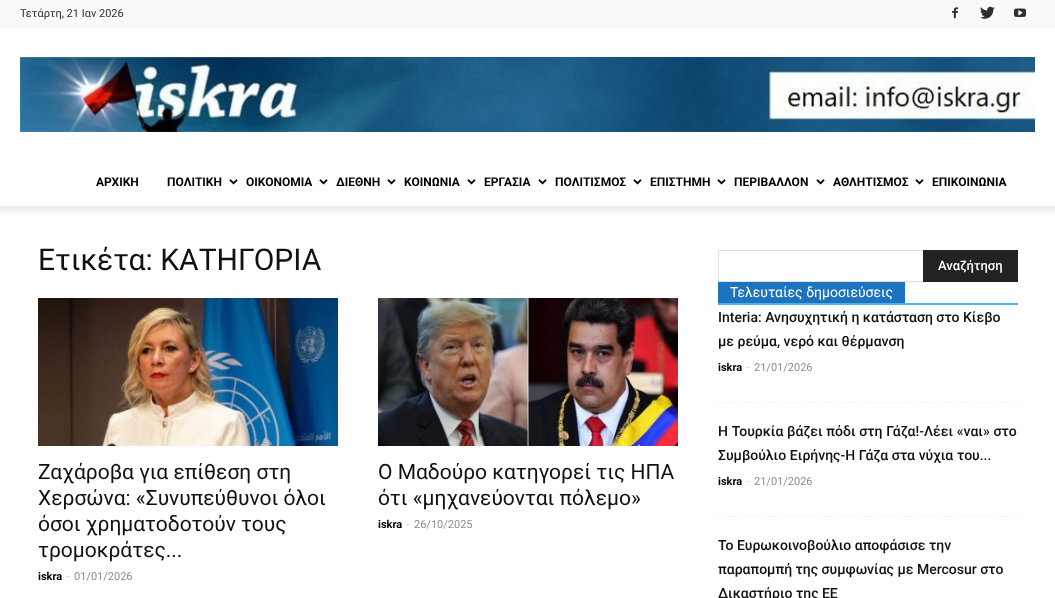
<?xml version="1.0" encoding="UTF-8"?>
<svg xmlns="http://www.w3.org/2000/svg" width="1055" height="598">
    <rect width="100%" height="100%" fill="#FFFFFF"/>
    <rect x="0" y="0" width="1055" height="28" fill="#F9F9F9"/>
    <text x="20" y="17" font-family="Roboto" font-size="11" fill="#2F2F2F">Τετάρτη, 21 Ιαν 2026</text>
    <image x="952" y="7" width="6" height="12" href="img_01.png"/>
    <image x="980" y="6" width="15" height="13" href="img_02.png"/>
    <image x="1014" y="8" width="12" height="9" href="img_03.png"/>
    <image x="20" y="57" width="1015" height="75" href="img_04.png"/>
    <text x="96" y="186" font-family="Roboto" font-size="12" font-weight="700" fill="#000000">ΑΡΧΙΚΗ</text>
    <text x="167" y="186" font-family="Roboto" font-size="12" font-weight="700" fill="#000000">ΠΟΛΙΤΙΚΗ</text>
    <image x="229" y="179" width="9" height="6" href="img_05.png"/>
    <text x="246" y="186" font-family="Roboto" font-size="12" font-weight="700" fill="#000000">ΟΙΚΟΝΟΜΙΑ</text>
    <image x="319" y="179" width="9" height="6" href="img_05.png"/>
    <text x="336" y="186" font-family="Roboto" font-size="12" font-weight="700" fill="#000000">ΔΙΕΘΝΗ</text>
    <image x="387" y="179" width="9" height="6" href="img_05.png"/>
    <text x="404" y="186" font-family="Roboto" font-size="12" font-weight="700" fill="#000000">ΚΟΙΝΩΝΙΑ</text>
    <image x="467" y="179" width="9" height="6" href="img_05.png"/>
    <text x="484" y="186" font-family="Roboto" font-size="12" font-weight="700" fill="#000000">ΕΡΓΑΣΙΑ</text>
    <image x="538" y="179" width="9" height="6" href="img_05.png"/>
    <text x="555" y="186" font-family="Roboto" font-size="12" font-weight="700" fill="#000000">ΠΟΛΙΤΙΣΜΟΣ</text>
    <image x="633" y="179" width="9" height="6" href="img_05.png"/>
    <text x="650" y="186" font-family="Roboto" font-size="12" font-weight="700" fill="#000000">ΕΠΙΣΤΗΜΗ</text>
    <image x="717" y="179" width="9" height="6" href="img_05.png"/>
    <text x="734" y="186" font-family="Roboto" font-size="12" font-weight="700" fill="#000000">ΠΕΡΙΒΑΛΛΟΝ</text>
    <image x="816" y="179" width="9" height="6" href="img_05.png"/>
    <text x="833" y="186" font-family="Roboto" font-size="12" font-weight="700" fill="#000000">ΑΘΛΗΤΙΣΜΟΣ</text>
    <image x="915" y="179" width="9" height="6" href="img_05.png"/>
    <text x="932" y="186" font-family="Roboto" font-size="12" font-weight="700" fill="#000000">ΕΠΙΚΟΙΝΩΝΙΑ</text>
    <image x="0" y="206" width="1055" height="9" href="img_06.png"/>
    <text x="38" y="270" font-family="Roboto" font-size="30" fill="#111111">Ετικέτα: ΚΑΤΗΓΟΡΙΑ</text>
    <image x="38" y="298" width="300" height="148" href="img_07.png"/>
    <text font-family="Roboto" font-size="21" fill="#111111">
        <tspan x="38" y="479">Ζαχάροβα για επίθεση στη</tspan>
        <tspan x="38" y="505">Χερσώνα: «Συνυπεύθυνοι όλοι</tspan>
        <tspan x="38" y="531">όσοι χρηματοδοτούν τους</tspan>
        <tspan x="38" y="557">τρομοκράτες...</tspan>
    </text>
    <text x="38" y="580" font-family="Roboto" font-size="11" font-weight="700" fill="#000000">iskra</text>
    <text x="66" y="580" font-family="Roboto" font-size="11" fill="#CCCCCC">-</text>
    <text x="74" y="580" font-family="Roboto" font-size="11" fill="#8C8C8C">01/01/2026</text>
    <image x="378" y="298" width="300" height="148" href="img_08.png"/>
    <text font-family="Roboto" font-size="21" fill="#111111">
        <tspan x="378" y="479">Ο Μαδούρο κατηγορεί τις ΗΠΑ</tspan>
        <tspan x="378" y="505">ότι «μηχανεύονται πόλεμο»</tspan>
    </text>
    <text x="378" y="528" font-family="Roboto" font-size="11" font-weight="700" fill="#000000">iskra</text>
    <text x="406" y="528" font-family="Roboto" font-size="11" fill="#CCCCCC">-</text>
    <text x="414" y="528" font-family="Roboto" font-size="11" fill="#8C8C8C">26/10/2025</text>
    <rect x="718" y="250" width="205" height="1" fill="#E1E1E1"/>
    <rect x="718" y="281" width="205" height="1" fill="#E1E1E1"/>
    <rect x="718" y="250" width="1" height="32" fill="#E1E1E1"/>
    <rect x="923" y="250" width="95" height="32" fill="#222222"/>
    <text x="938" y="270" font-family="Roboto" font-size="13" font-weight="500" fill="#FFFFFF">Αναζήτηση</text>
    <rect x="718" y="303" width="300" height="2" fill="#4DB2EC"/>
    <rect x="718" y="282" width="187" height="21" fill="#1E73BE"/>
    <text x="730" y="297" font-family="Roboto" font-size="14" fill="#FFFFFF">Τελευταίες δημοσιεύσεις</text>
    <path d="M 718 402.5 H 1018" fill="none" stroke="#F2F2F2" stroke-dasharray="3 2.03"/>
    <text font-family="Roboto" font-size="14" font-weight="500" fill="#111111">
        <tspan x="718" y="322">Interia: Ανησυχητική η κατάσταση στο Κίεβο</tspan>
        <tspan x="718" y="346">με ρεύμα, νερό και θέρμανση</tspan>
    </text>
    <text x="718" y="371" font-family="Roboto" font-size="11" font-weight="700" fill="#000000">iskra</text>
    <text x="746" y="371" font-family="Roboto" font-size="11" fill="#CCCCCC">-</text>
    <text x="754" y="371" font-family="Roboto" font-size="11" fill="#8C8C8C">21/01/2026</text>
    <path d="M 718 516.5 H 1018" fill="none" stroke="#F2F2F2" stroke-dasharray="3 2.03"/>
    <text font-family="Roboto" font-size="14" font-weight="500" fill="#111111">
        <tspan x="718" y="436" word-spacing="0.25">Η Τουρκία βάζει πόδι στη Γάζα!-Λέει «ναι» στο</tspan>
        <tspan x="718" y="460" word-spacing="0.25">Συμβούλιο Ειρήνης-Η Γάζα στα νύχια του...</tspan>
    </text>
    <text x="718" y="485" font-family="Roboto" font-size="11" font-weight="700" fill="#000000">iskra</text>
    <text x="746" y="485" font-family="Roboto" font-size="11" fill="#CCCCCC">-</text>
    <text x="754" y="485" font-family="Roboto" font-size="11" fill="#8C8C8C">21/01/2026</text>
    <text font-family="Roboto" font-size="14" font-weight="500" fill="#111111">
        <tspan x="718" y="550">Το Ευρωκοινοβούλιο αποφάσισε την</tspan>
        <tspan x="718" y="574">παραπομπή της συμφωνίας με Mercosur στο</tspan>
        <tspan x="718" y="598">Δικαστήριο της ΕΕ</tspan>
    </text>
</svg>
